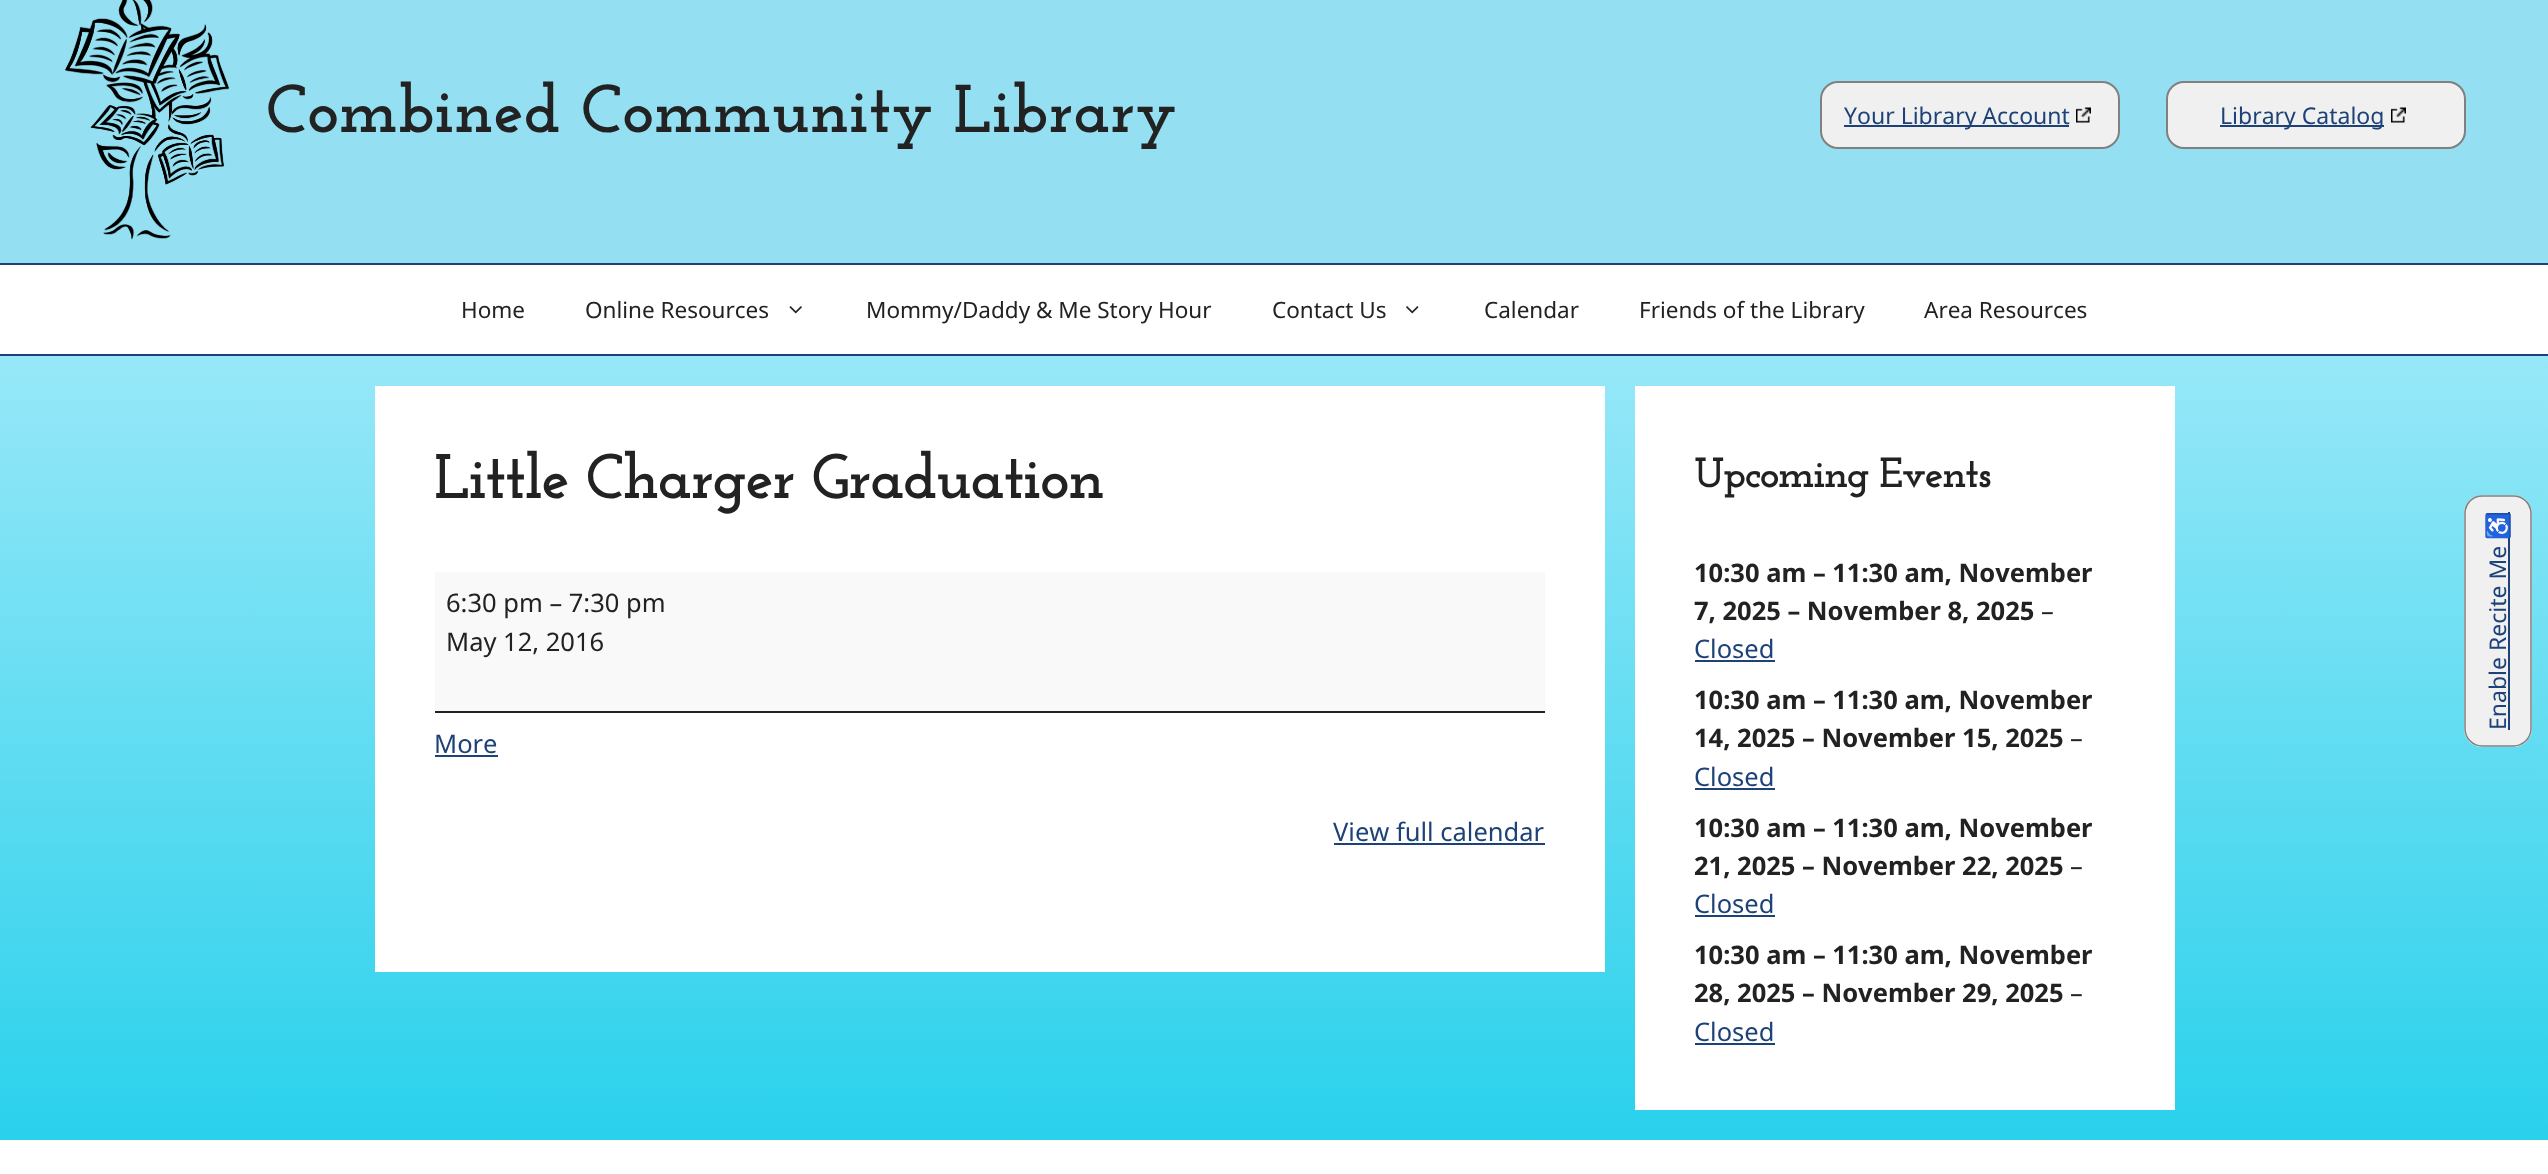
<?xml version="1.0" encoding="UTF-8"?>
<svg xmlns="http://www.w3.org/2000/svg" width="2548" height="1174">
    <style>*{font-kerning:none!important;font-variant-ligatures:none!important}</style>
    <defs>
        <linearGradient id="g1" gradientUnits="userSpaceOnUse" x1="1274" y1="-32" x2="1274" y2="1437"><stop offset="0" stop-color="#CDF3FE"/><stop offset="1" stop-color="#00C8E7"/></linearGradient>
    </defs>
    <rect width="100%" height="100%" fill="#FFFFFF"/>
    <rect x="0" y="356" width="2548" height="784" fill="url(#g1)"/>
    <rect x="0" y="0" width="2548" height="263" fill="#94DFF1"/>
    <image x="65" y="0" width="164" height="240" href="img_01.png"/>
    <text x="266" y="132" font-family="Josefin Slab" font-size="67.5" font-weight="700" fill="#222222">Combined Community Library</text>
    <rect x="1821" y="82" width="298" height="66" rx="17" fill="#F0F0F0" stroke="#808080" stroke-width="2"/>
    <rect x="1844" y="125" width="225" height="2" fill="#1D4277"/>
    <text x="1844" y="124" font-family="Noto Sans" font-size="23" fill="#1D4277">Your Library Account</text>
    <image x="2076" y="107" width="15" height="16" href="img_02.png"/>
    <rect x="2167" y="82" width="298" height="66" rx="17" fill="#F0F0F0" stroke="#808080" stroke-width="2"/>
    <rect x="2220" y="125" width="164" height="2" fill="#1D4277"/>
    <text x="2220" y="124" font-family="Noto Sans" font-size="23" fill="#1D4277">Library Catalog</text>
    <image x="2391" y="107" width="15" height="16" href="img_02.png"/>
    <path d="M 2464 729 V 513 C 2464 503 2472 495 2482 495 H 2514 C 2523 495 2532 503 2532 513 V 729 C 2532 739 2523 747 2514 747 H 2482 C 2472 747 2464 739 2464 729 Z" fill="#F0F0F0"/>
    <path d="M 2465 728.5 V 513.5 C 2465 503.5 2472.5 496 2482 496 H 2513.5 C 2523 496 2531 503.5 2531 513.5 V 728.5 C 2531 738 2523 746 2513.5 746 H 2482 C 2472.5 746 2465 738 2465 728.5 Z" fill="none" stroke="#808080" stroke-width="1.5"/>
    <rect x="2508" y="512" width="2" height="218" fill="#1D4277"/>
    <text x="2506" y="540" transform="rotate(-90 2506 540)" font-family="Noto Color Emoji" font-size="23" fill="#1D4277">♿</text>
    <text x="2506" y="730" transform="rotate(-90 2506 730)" font-family="Noto Sans" font-size="23" fill="#1D4277">Enable Recite Me</text>
    <rect x="0" y="263" width="2548" height="2" fill="#1D4177"/>
    <rect x="0" y="354" width="2548" height="2" fill="#1D4177"/>
    <text x="461" y="318" font-family="Noto Sans" font-size="22.5" fill="#222222">Home</text>
    <text x="585" y="318" font-family="Noto Sans" font-size="22.5" fill="#222222">Online Resources</text>
    <image x="789" y="306" width="13" height="8" href="img_03.png"/>
    <text x="866" y="318" font-family="Noto Sans" font-size="22.5" fill="#222222">Mommy/Daddy &amp; Me Story Hour</text>
    <text x="1272" y="318" font-family="Noto Sans" font-size="22.5" fill="#222222">Contact Us</text>
    <image x="1406" y="306" width="13" height="8" href="img_04.png"/>
    <text x="1484" y="318" font-family="Noto Sans" font-size="22.5" fill="#222222">Calendar</text>
    <text x="1639" y="318" font-family="Noto Sans" font-size="22.5" fill="#222222">Friends of the Library</text>
    <text x="1924" y="318" font-family="Noto Sans" font-size="22.5" fill="#222222">Area Resources</text>
    <rect x="375" y="386" width="1230" height="586" fill="#FFFFFF"/>
    <text x="434" y="498" font-family="Josefin Slab" font-size="63" font-weight="700" letter-spacing="-1.5" fill="#222222">Little Charger Graduation</text>
    <rect x="435" y="572" width="1110" height="139" fill="#F9F9F9"/>
    <rect x="435" y="711" width="1110" height="2" fill="#222222"/>
    <text font-family="Noto Sans" font-size="25.5" fill="#222222">
        <tspan x="446" y="612">6:30 pm – 7:30 pm</tspan>
        <tspan x="446" y="651">May 12, 2016</tspan>
    </text>
    <text x="434" y="753" font-family="Noto Sans" font-size="25.5" fill="#1D4277">More</text>
    <rect x="435" y="755" width="63" height="2" fill="#1D4277"/>
    <text x="1333" y="841" font-family="Noto Sans" font-size="25.5" fill="#1D4277">View full calendar</text>
    <rect x="1334" y="843" width="211" height="2" fill="#1D4277"/>
    <rect x="1635" y="386" width="540" height="724" fill="#FFFFFF"/>
    <text x="1694" y="487" font-family="Josefin Slab" font-size="42" font-weight="700" letter-spacing="-1.5" fill="#222222">Upcoming Events</text>
    <text font-family="Noto Sans" font-size="25.5" font-weight="700" fill="#222222">
        <tspan x="1694" y="582">10:30 am – 11:30 am, November</tspan>
        <tspan x="1694" y="620">7, 2025 – November 8, 2025</tspan>
    </text>
    <text x="2041" y="620" font-family="Noto Sans" font-size="25.5" fill="#222222">–</text>
    <text x="1694" y="658" font-family="Noto Sans" font-size="25.5" fill="#1D4277">Closed</text>
    <rect x="1695" y="660" width="80" height="2" fill="#1D4277"/>
    <text font-family="Noto Sans" font-size="25.5" font-weight="700" fill="#222222">
        <tspan x="1694" y="709">10:30 am – 11:30 am, November</tspan>
        <tspan x="1694" y="747">14, 2025 – November 15, 2025</tspan>
    </text>
    <text x="2070" y="747" font-family="Noto Sans" font-size="25.5" fill="#222222">–</text>
    <text x="1694" y="786" font-family="Noto Sans" font-size="25.5" fill="#1D4277">Closed</text>
    <rect x="1695" y="788" width="80" height="2" fill="#1D4277"/>
    <text font-family="Noto Sans" font-size="25.5" font-weight="700" fill="#222222">
        <tspan x="1694" y="837">10:30 am – 11:30 am, November</tspan>
        <tspan x="1694" y="875">21, 2025 – November 22, 2025</tspan>
    </text>
    <text x="2070" y="875" font-family="Noto Sans" font-size="25.5" fill="#222222">–</text>
    <text x="1694" y="913" font-family="Noto Sans" font-size="25.5" fill="#1D4277">Closed</text>
    <rect x="1695" y="915" width="80" height="2" fill="#1D4277"/>
    <text font-family="Noto Sans" font-size="25.5" font-weight="700" fill="#222222">
        <tspan x="1694" y="964">10:30 am – 11:30 am, November</tspan>
        <tspan x="1694" y="1002">28, 2025 – November 29, 2025</tspan>
    </text>
    <text x="2070" y="1002" font-family="Noto Sans" font-size="25.5" fill="#222222">–</text>
    <text x="1694" y="1041" font-family="Noto Sans" font-size="25.5" fill="#1D4277">Closed</text>
    <rect x="1695" y="1043" width="80" height="2" fill="#1D4277"/>
</svg>
